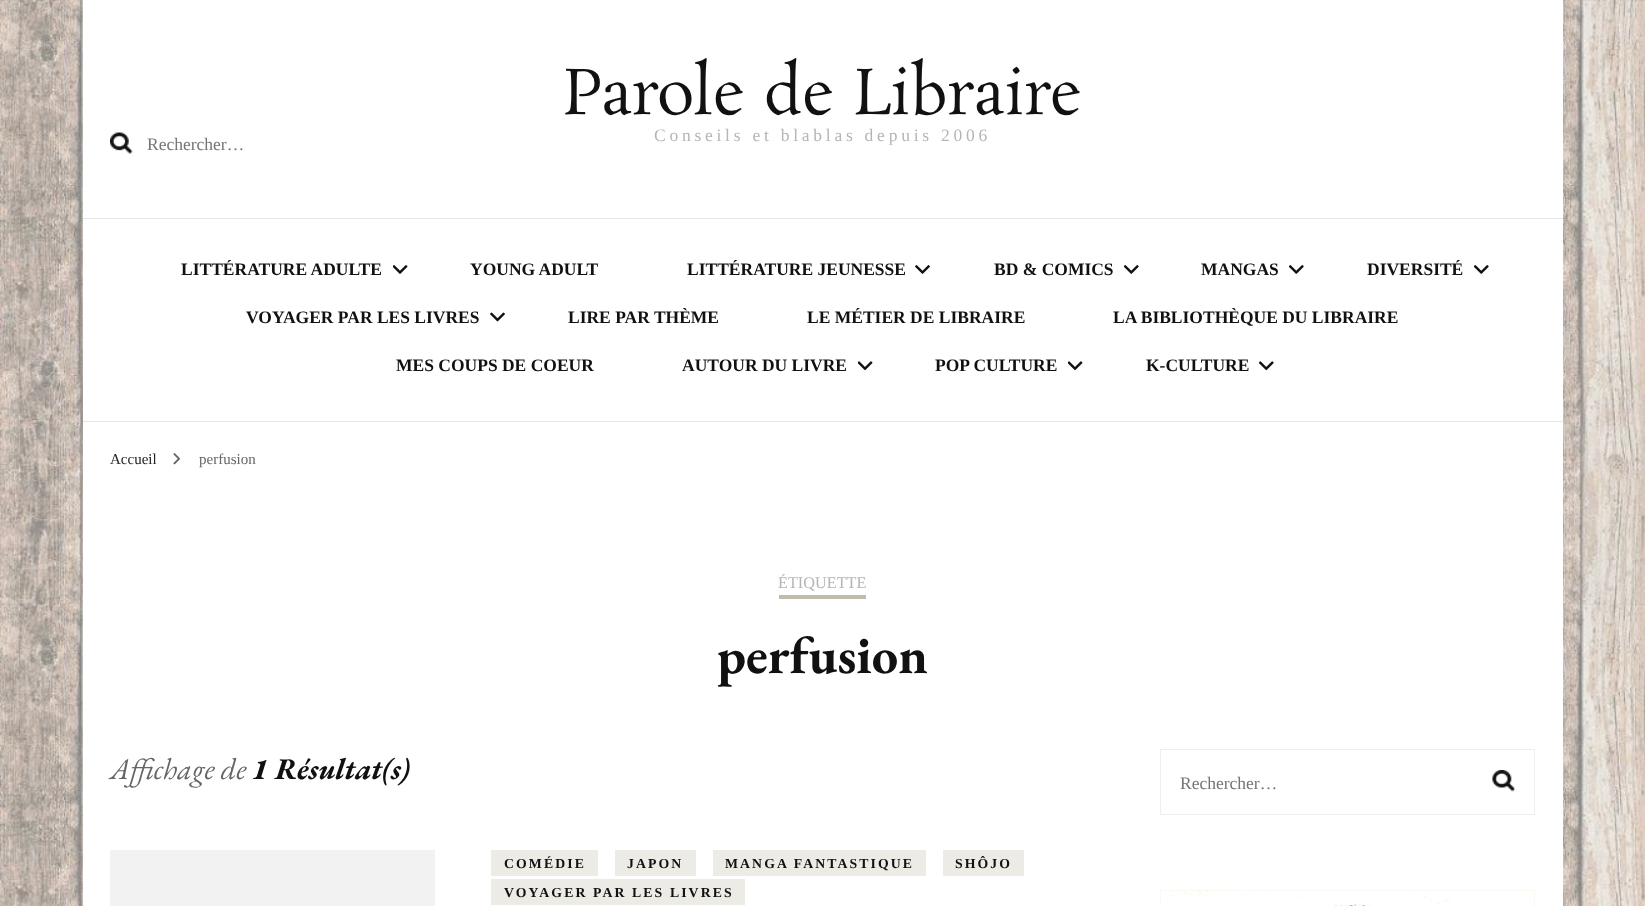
<?xml version="1.0" encoding="UTF-8"?>
<svg xmlns="http://www.w3.org/2000/svg" width="1645" height="906">
    <rect width="100%" height="100%" fill="#FFFFFF"/>
    <image x="0" y="0" width="1645" height="906" href="img_01.png"/>
    <rect x="83" y="0" width="1480" height="906" fill="#FFFFFF"/>
    <image x="110" y="132" width="23" height="22" href="img_02.png"/>
    <text x="147" y="150" font-family="Liberation Serif" font-size="17.5" fill="#757575">Rechercher…</text>
    <text x="563" y="114" font-family="Rosarivo" font-size="62.5" fill="#111111">Parole de Libraire</text>
    <text x="654" y="141" font-family="Liberation Serif" font-size="17.5" letter-spacing="3.75" fill="#B5B5B5">Conseils et blablas depuis 2006</text>
    <rect x="83" y="218" width="1480" height="1" fill="#E5E5E5"/>
    <rect x="83" y="421" width="1480" height="1" fill="#E5E5E5"/>
    <text x="181" y="275" font-family="Liberation Serif" font-size="17.5" font-weight="700" fill="#111111">LITTÉRATURE ADULTE</text>
    <image x="393" y="265" width="15" height="9" href="img_03.png"/>
    <text x="470" y="275" font-family="Liberation Serif" font-size="17.5" font-weight="700" fill="#111111">YOUNG ADULT</text>
    <text x="687" y="275" font-family="Liberation Serif" font-size="17.5" font-weight="700" fill="#111111">LITTÉRATURE JEUNESSE</text>
    <image x="915" y="265" width="15" height="9" href="img_04.png"/>
    <text x="994" y="275" font-family="Liberation Serif" font-size="17.5" font-weight="700" fill="#111111">BD &amp; COMICS</text>
    <image x="1124" y="265" width="15" height="9" href="img_05.png"/>
    <text x="1201" y="275" font-family="Liberation Serif" font-size="17.5" font-weight="700" fill="#111111">MANGAS</text>
    <image x="1289" y="265" width="15" height="9" href="img_05.png"/>
    <text x="1367" y="275" font-family="Liberation Serif" font-size="17.5" font-weight="700" fill="#111111">DIVERSITÉ</text>
    <image x="1474" y="265" width="15" height="9" href="img_05.png"/>
    <text x="246" y="323" font-family="Liberation Serif" font-size="17.5" font-weight="700" fill="#111111">VOYAGER PAR LES LIVRES</text>
    <image x="490" y="312" width="15" height="10" href="img_06.png"/>
    <text x="568" y="323" font-family="Liberation Serif" font-size="17.5" font-weight="700" fill="#111111">LIRE PAR THÈME</text>
    <text x="807" y="323" font-family="Liberation Serif" font-size="17.5" font-weight="700" fill="#111111">LE MÉTIER DE LIBRAIRE</text>
    <text x="1113" y="323" font-family="Liberation Serif" font-size="17.5" font-weight="700" fill="#111111">LA BIBLIOTHÈQUE DU LIBRAIRE</text>
    <text x="396" y="371" font-family="Liberation Serif" font-size="17.5" font-weight="700" fill="#111111">MES COUPS DE COEUR</text>
    <text x="682" y="371" font-family="Liberation Serif" font-size="17.5" font-weight="700" fill="#111111">AUTOUR DU LIVRE</text>
    <image x="858" y="361" width="15" height="10" href="img_07.png"/>
    <text x="935" y="371" font-family="Liberation Serif" font-size="17.5" font-weight="700" fill="#111111">POP CULTURE</text>
    <image x="1068" y="361" width="15" height="10" href="img_07.png"/>
    <text x="1146" y="371" font-family="Liberation Serif" font-size="17.5" font-weight="700" fill="#111111">K-CULTURE</text>
    <image x="1259" y="361" width="15" height="10" href="img_08.png"/>
    <text x="110" y="464" font-family="Liberation Serif" font-size="15" fill="#222222">Accueil</text>
    <image x="173" y="453" width="7" height="12" href="img_09.png"/>
    <text x="199" y="464" font-family="Liberation Serif" font-size="15" fill="#666666">perfusion</text>
    <rect x="779" y="595" width="87" height="4" fill="#C1BBAA"/>
    <text x="778" y="588" font-family="Liberation Serif" font-size="16.25" fill="#B5B5B5">ÉTIQUETTE</text>
    <text x="717" y="673" font-family="EB Garamond" font-size="52.5" font-weight="700" fill="#111111">perfusion</text>
    <text x="110" y="779" font-family="EB Garamond" font-size="30" font-style="italic" fill="#666666">Affichage de</text>
    <text x="252" y="779" font-family="EB Garamond" font-size="30" font-weight="700" font-style="italic" fill="#111111">1 Résultat(s)</text>
    <rect x="110" y="850" width="325" height="56" fill="#F2F2F2"/>
    <rect x="491" y="850" width="107" height="26" fill="#ECEBE6"/>
    <text x="504" y="868" font-family="Liberation Serif" font-size="13.75" font-weight="700" letter-spacing="2.1" fill="#111111">COMÉDIE</text>
    <rect x="615" y="850" width="81" height="26" fill="#ECEBE6"/>
    <text x="627" y="868" font-family="Liberation Serif" font-size="13.75" font-weight="700" letter-spacing="2.1" fill="#111111">JAPON</text>
    <rect x="713" y="850" width="213" height="26" fill="#ECEBE6"/>
    <text x="725" y="868" font-family="Liberation Serif" font-size="13.75" font-weight="700" letter-spacing="2.1" fill="#111111">MANGA FANTASTIQUE</text>
    <rect x="943" y="850" width="81" height="26" fill="#ECEBE6"/>
    <text x="955" y="868" font-family="Liberation Serif" font-size="13.75" font-weight="700" letter-spacing="2.1" fill="#111111">SHÔJO</text>
    <rect x="491" y="879" width="254" height="26" fill="#ECEBE6"/>
    <text x="504" y="897" font-family="Liberation Serif" font-size="13.75" font-weight="700" letter-spacing="2.1" fill="#111111">VOYAGER PAR LES LIVRES</text>
    <rect x="1160.5" y="749.5" width="374" height="65" fill="none" stroke="#EEEEEE"/>
    <text x="1180" y="789" font-family="Liberation Serif" font-size="17.5" fill="#757575">Rechercher…</text>
    <image x="1492" y="770" width="23" height="22" href="img_10.png"/>
    <image x="1160" y="890" width="375" height="16" href="img_11.png"/>
</svg>
